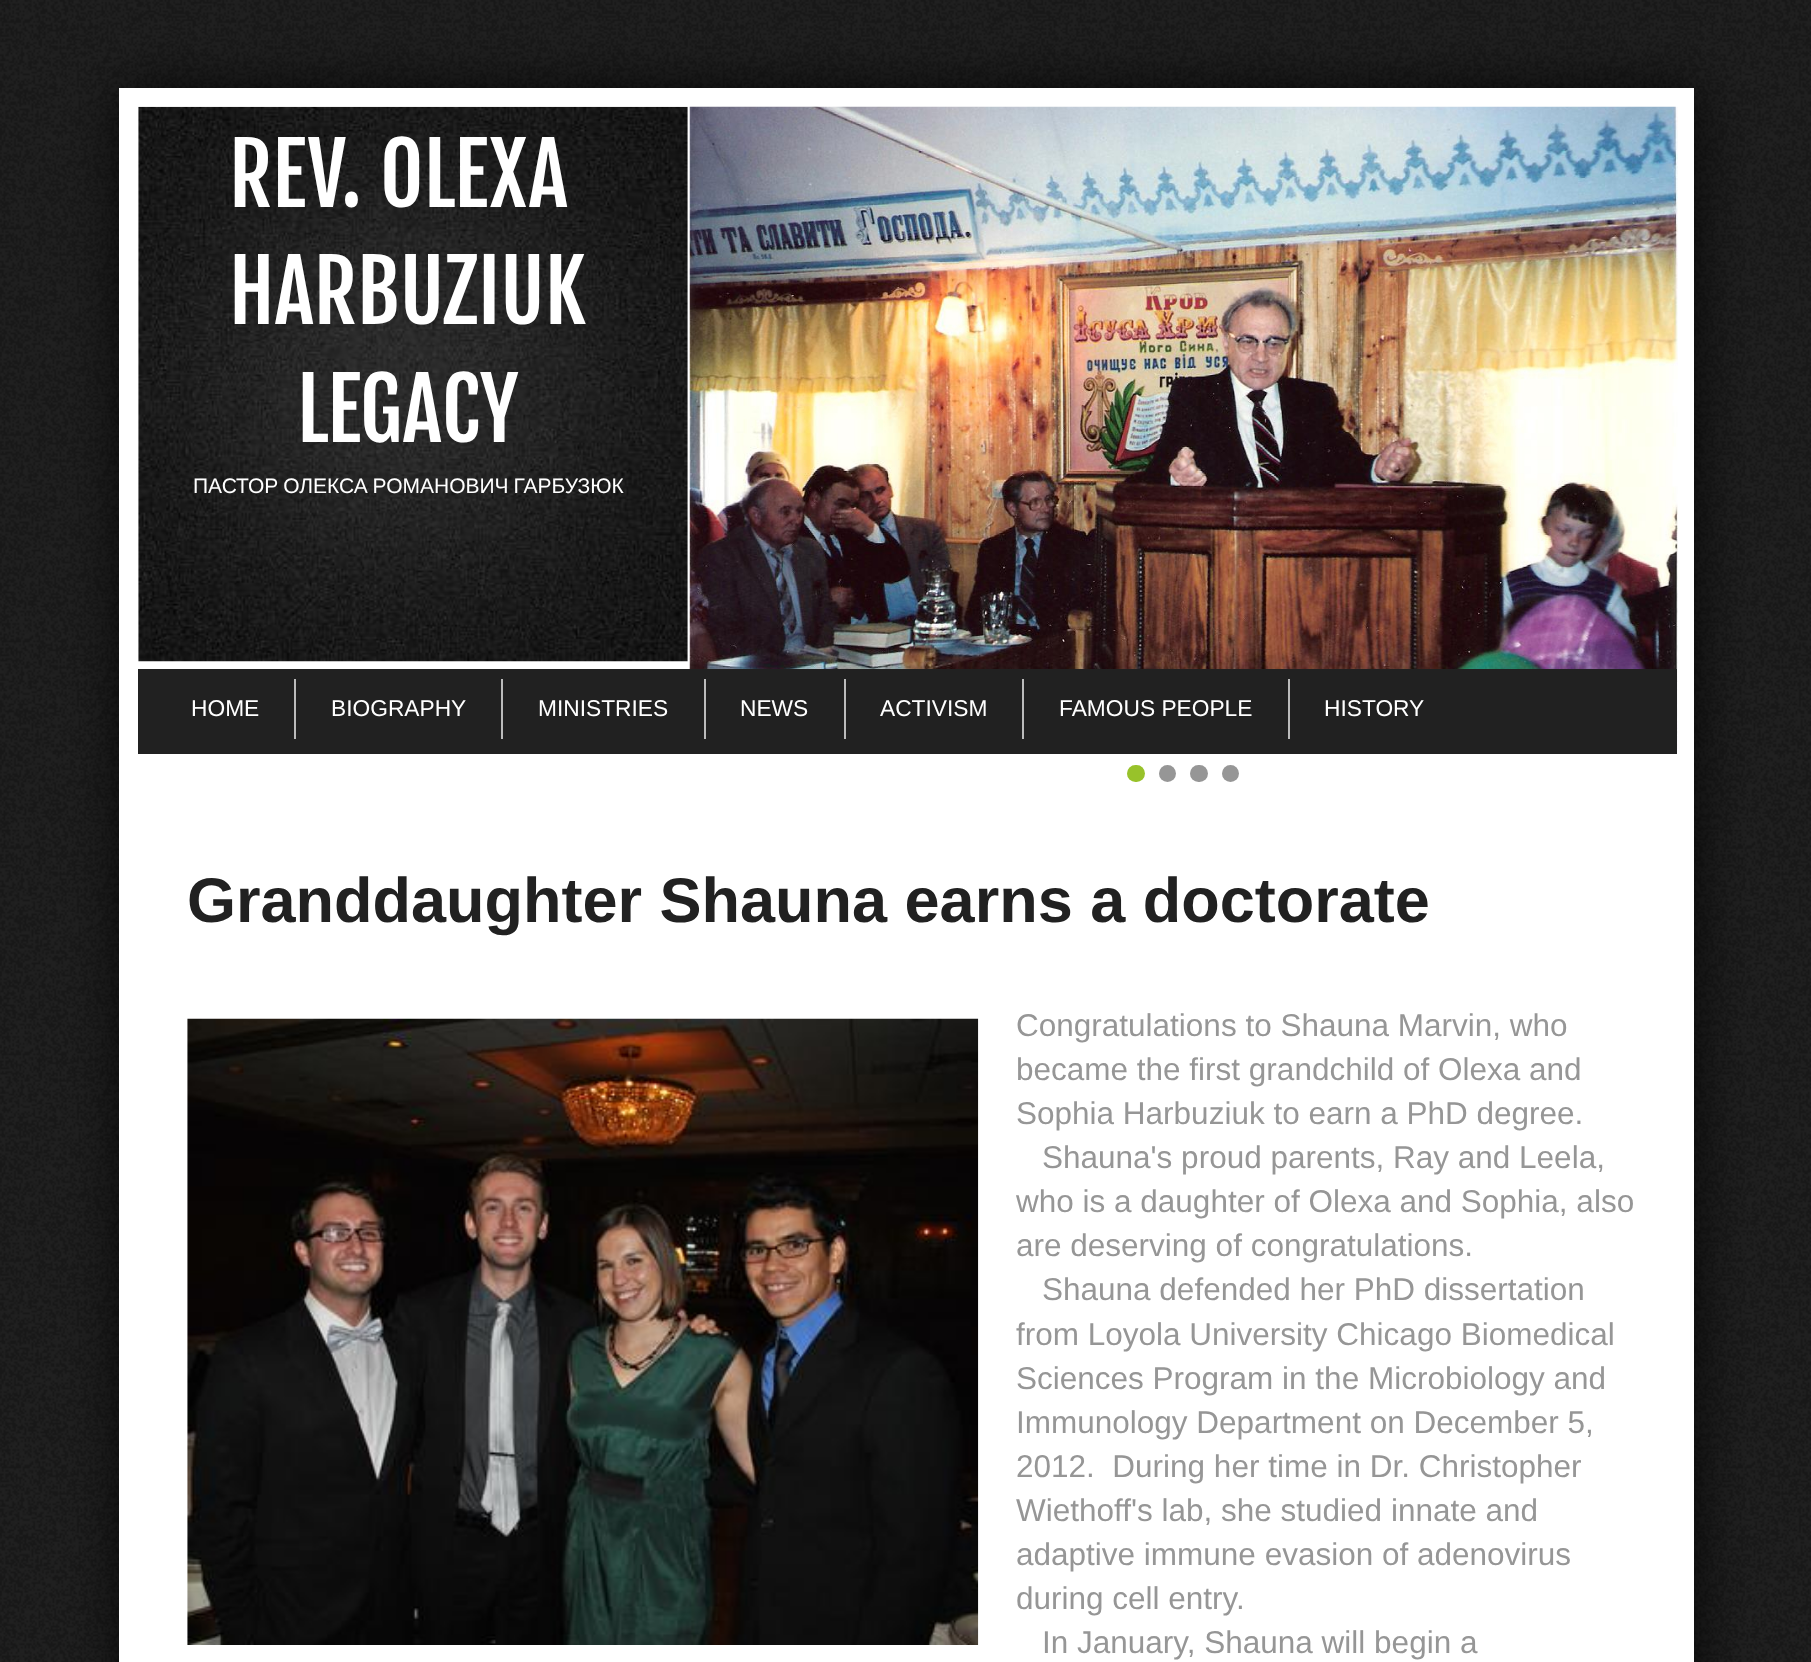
<?xml version="1.0" encoding="UTF-8"?>
<svg xmlns="http://www.w3.org/2000/svg" width="1811" height="1662">
    <defs>
        <filter id="blur1" x="-50%" y="-200%" width="200%" height="500%"><feGaussianBlur stdDeviation="26"/></filter>
    </defs>
    <rect width="100%" height="100%" fill="#FFFFFF"/>
    <image x="0" y="0" width="1811" height="1662" href="img_01.png"/>
    <rect x="121" y="89" width="1575" height="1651" fill="#000000" fill-opacity="0.8" filter="url(#blur1)"/>
    <rect x="119" y="88" width="1575" height="1574" fill="#FFFFFF"/>
    <image x="138" y="106" width="550" height="556" href="img_02.png"/>
    <image x="689" y="106" width="989" height="643" href="img_03.png"/>
    <rect x="1127" y="765" width="18" height="17" rx="8.5" fill="#98C22A"/>
    <circle cx="1167.5" cy="773.5" r="8.5" fill="#969696"/>
    <rect x="1190" y="765" width="18" height="17" rx="8.5" fill="#969696"/>
    <circle cx="1230.5" cy="773.5" r="8.5" fill="#969696"/>
    <text font-family="Fjalla One" font-size="84" fill="#FFFFFF">
        <tspan x="229" y="207">REV. OLEXA</tspan>
        <tspan x="229" y="324">HARBUZIUK</tspan>
    </text>
    <text x="297" y="442" font-family="Fjalla One" font-size="84" fill="#FFFFFF">LEGACY</text>
    <text x="193" y="493" word-spacing="-1" font-family="Liberation Sans" font-size="21" fill="#FFFFFF">ПАСТОР ОЛЕКСА РОМАНОВИЧ ГАРБУЗЮК</text>
    <rect x="138" y="669" width="1539" height="85" fill="#212121"/>
    <text x="191" y="716" font-family="Liberation Sans" font-size="22.75" fill="#FFFFFF">HOME</text>
    <rect x="294" y="679" width="2" height="60" fill="#BBBBBB"/>
    <text x="331" y="716" font-family="Liberation Sans" font-size="22.75" fill="#FFFFFF">BIOGRAPHY</text>
    <rect x="501" y="679" width="2" height="60" fill="#BBBBBB"/>
    <text x="538" y="716" font-family="Liberation Sans" font-size="22.75" fill="#FFFFFF">MINISTRIES</text>
    <rect x="704" y="679" width="2" height="60" fill="#BBBBBB"/>
    <text x="740" y="716" font-family="Liberation Sans" font-size="22.75" fill="#FFFFFF">NEWS</text>
    <rect x="844" y="679" width="2" height="60" fill="#BBBBBB"/>
    <text x="880" y="716" font-family="Liberation Sans" font-size="22.75" fill="#FFFFFF">ACTIVISM</text>
    <rect x="1022" y="679" width="2" height="60" fill="#BBBBBB"/>
    <text x="1059" y="716" font-family="Liberation Sans" font-size="22.75" fill="#FFFFFF">FAMOUS PEOPLE</text>
    <rect x="1288" y="679" width="2" height="60" fill="#BBBBBB"/>
    <text x="1324" y="716" font-family="Liberation Sans" font-size="22.75" fill="#FFFFFF">HISTORY</text>
    <text x="187" y="922" font-family="Liberation Sans" font-size="63" font-weight="700" fill="#212121">Granddaughter Shauna earns a doctorate</text>
    <image x="187" y="1018" width="792" height="627" href="img_04.png"/>
    <text font-family="Liberation Sans" font-size="31.5" fill="#969696">
        <tspan x="1016" y="1036">Congratulations to Shauna Marvin, who</tspan>
        <tspan x="1016" y="1080">became the first grandchild of Olexa and</tspan>
        <tspan x="1016" y="1124">Sophia Harbuziuk to earn a PhD degree.</tspan>
    </text>
    <text x="1042" y="1168" font-family="Liberation Sans" font-size="31.5" fill="#969696">Shauna's proud parents, Ray and Leela,</text>
    <text font-family="Liberation Sans" font-size="31.5" fill="#969696">
        <tspan x="1016" y="1212">who is a daughter of Olexa and Sophia, also</tspan>
        <tspan x="1016" y="1256">are deserving of congratulations.</tspan>
    </text>
    <text x="1042" y="1300" font-family="Liberation Sans" font-size="31.5" fill="#969696">Shauna defended her PhD dissertation</text>
    <text font-family="Liberation Sans" font-size="31.5" fill="#969696" xml:space="preserve"><tspan x="1016" y="1345">from Loyola University Chicago Biomedical</tspan><tspan x="1016" y="1389">Sciences Program in the Microbiology and</tspan><tspan x="1016" y="1433">Immunology Department on December 5,</tspan><tspan x="1016" y="1477">2012.  During her time in Dr. Christopher</tspan><tspan x="1016" y="1521">Wiethoff's lab, she studied innate and</tspan><tspan x="1016" y="1565">adaptive immune evasion of adenovirus</tspan><tspan x="1016" y="1609">during cell entry.</tspan></text>
    <text x="1042" y="1653" font-family="Liberation Sans" font-size="31.5" fill="#969696">In January, Shauna will begin a</text>
</svg>
